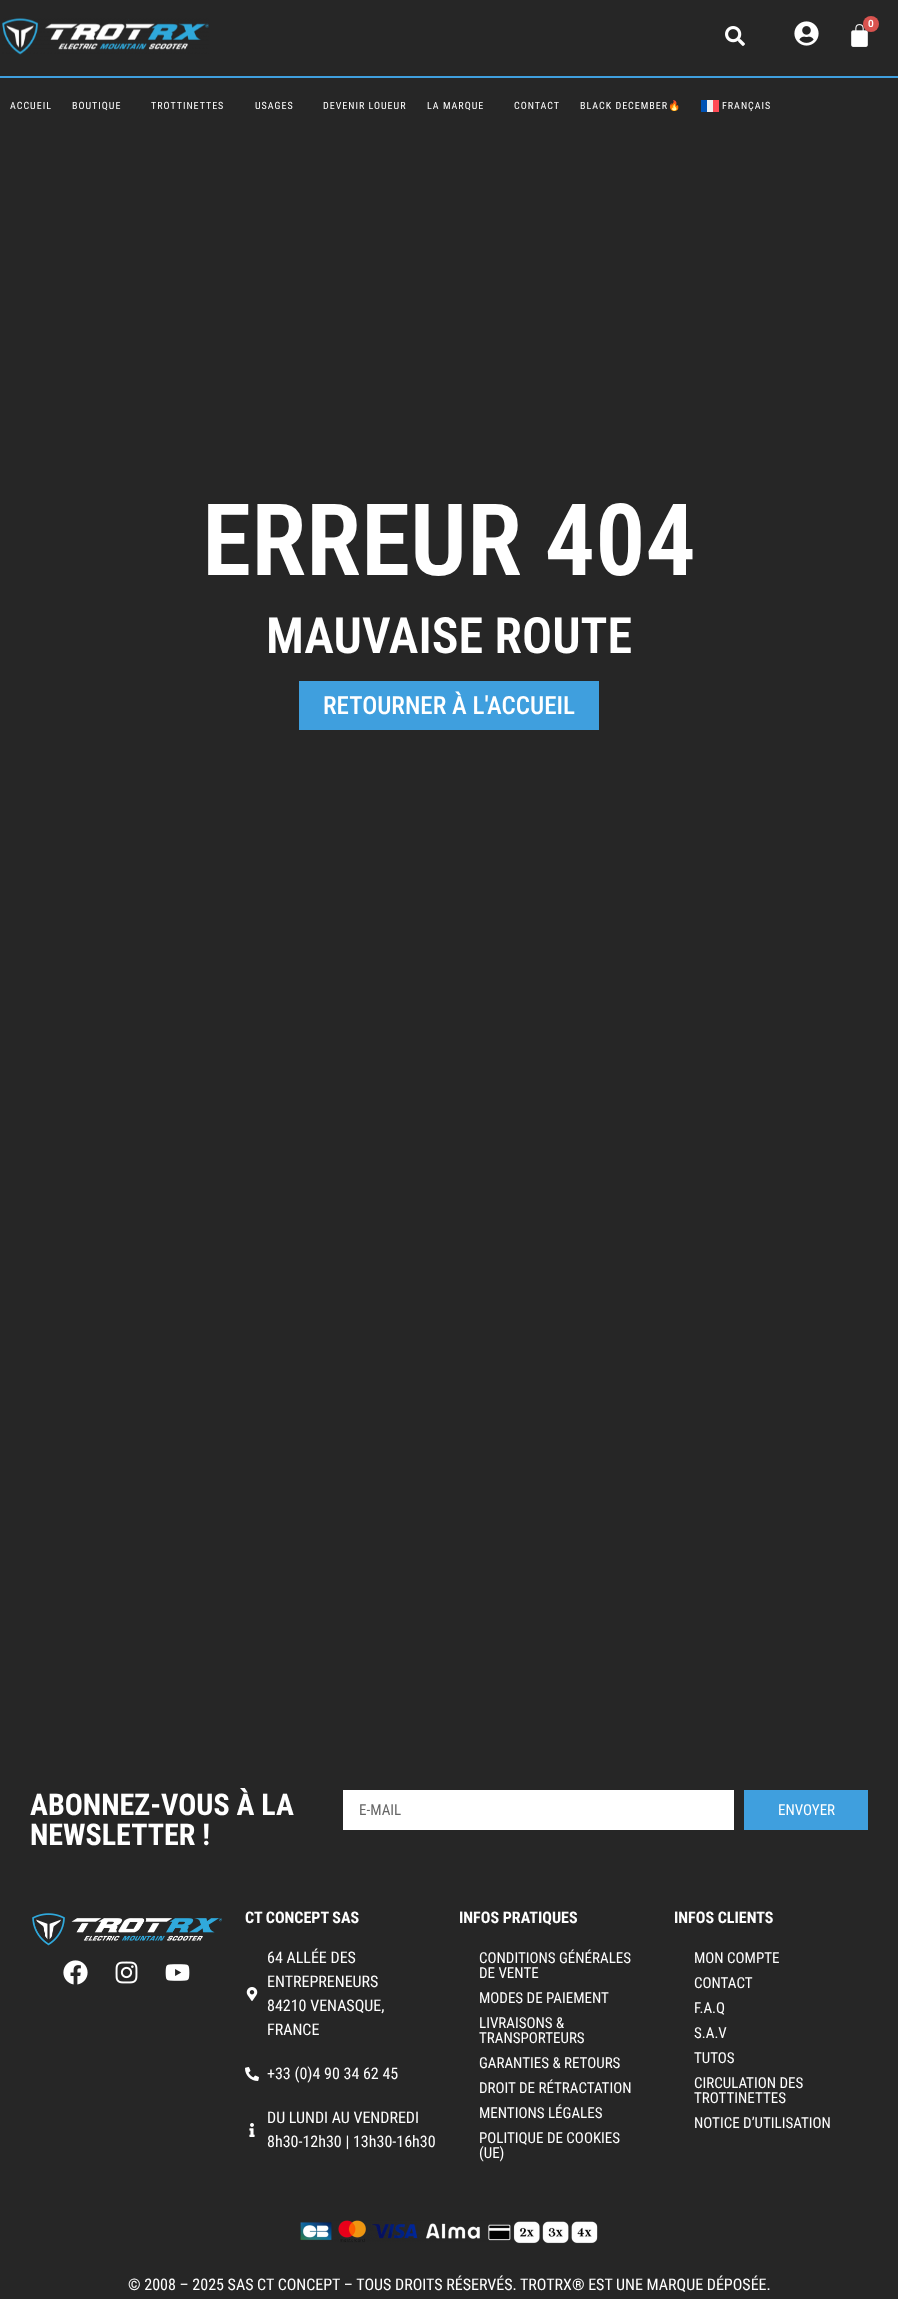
<?xml version="1.0" encoding="UTF-8"?>
<svg xmlns="http://www.w3.org/2000/svg" width="898" height="2299">
    <rect width="100%" height="100%" fill="#262626"/>
    <image x="2" y="18" width="207" height="37" href="img_01.png"/>
    <image x="725" y="26" width="20" height="20" href="img_02.png"/>
    <image x="794" y="21" width="25" height="25" href="img_03.png"/>
    <image x="851" y="24" width="17" height="23" href="img_04.png"/>
    <circle cx="871" cy="24" r="8" fill="#D9534F"/>
    <text x="868" y="27" font-family="Roboto" font-size="10" font-weight="600" fill="#FFFFFF">0</text>
    <rect x="0" y="76" width="898" height="2" fill="#3F9FDE"/>
    <text x="10" y="109" font-family="Roboto Condensed" font-size="10" letter-spacing="1" fill="#FFFFFF">ACCUEIL</text>
    <text x="72" y="109" font-family="Roboto Condensed" font-size="10" letter-spacing="1" fill="#FFFFFF">BOUTIQUE</text>
    <text x="151" y="109" font-family="Roboto Condensed" font-size="10" letter-spacing="1" fill="#FFFFFF">TROTTINETTES</text>
    <text x="255" y="109" font-family="Roboto Condensed" font-size="10" letter-spacing="1" fill="#FFFFFF">USAGES</text>
    <text x="323" y="109" font-family="Roboto Condensed" font-size="10" letter-spacing="1" fill="#FFFFFF">DEVENIR LOUEUR</text>
    <text x="427" y="109" font-family="Roboto Condensed" font-size="10" letter-spacing="1" fill="#FFFFFF">LA MARQUE</text>
    <text x="514" y="109" font-family="Roboto Condensed" font-size="10" letter-spacing="1" fill="#FFFFFF">CONTACT</text>
    <text x="580" y="109" font-family="Roboto Condensed" font-size="10" letter-spacing="1" fill="#FFFFFF">BLACK DECEMBER</text>
    <text x="668" y="109" font-family="Noto Color Emoji" font-size="10" letter-spacing="1" fill="#FFFFFF">🔥</text>
    <rect x="707" y="100" width="6" height="12" fill="#F0F0F0"/>
    <rect x="713" y="100" width="6" height="12" fill="#FF4B55"/>
    <rect x="701" y="100" width="6" height="12" fill="#0052B4"/>
    <text x="722" y="109" font-family="Roboto Condensed" font-size="10" letter-spacing="1" fill="#FFFFFF">FRANÇAIS</text>
    <text x="202" y="575" font-family="Roboto Condensed" font-size="100" font-weight="600" fill="#FFFFFF">ERREUR 404</text>
    <text x="266" y="653" font-family="Roboto Condensed" font-size="50" font-weight="600" fill="#FFFFFF">MAUVAISE ROUTE</text>
    <rect x="299" y="681" width="300" height="49" fill="#3F9FDE"/>
    <text x="323" y="714" font-family="Roboto Condensed" font-size="25" font-weight="500" fill="#FFFFFF">RETOURNER À L'ACCUEIL</text>
    <text font-family="Roboto Condensed" font-size="30" font-weight="700" fill="#FFFFFF">
        <tspan x="30" y="1815">ABONNEZ-VOUS À LA</tspan>
        <tspan x="30" y="1845">NEWSLETTER !</tspan>
    </text>
    <rect x="343" y="1790" width="391" height="40" fill="#FFFFFF"/>
    <text x="359" y="1815" font-family="Roboto Condensed" font-size="15" fill="#666666">E-MAIL</text>
    <rect x="744" y="1790" width="124" height="40" fill="#3F9FDE"/>
    <text x="778" y="1815" font-family="Roboto Condensed" font-size="15" fill="#FFFFFF">ENVOYER</text>
    <image x="32" y="1913" width="191" height="33" href="img_05.png"/>
    <image x="63" y="1960" width="25" height="25" href="img_06.png"/>
    <image x="115" y="1961" width="23" height="23" href="img_07.png"/>
    <image x="165" y="1964" width="25" height="17" href="img_08.png"/>
    <text x="245" y="1923" font-family="Roboto Condensed" font-size="16" font-weight="700" fill="#FFFFFF">CT CONCEPT SAS</text>
    <image x="246" y="1987" width="12" height="14" href="img_09.png"/>
    <text font-family="Roboto Condensed" font-size="16" fill="#FFFFFF">
        <tspan x="267" y="1963">64 ALLÉE DES</tspan>
        <tspan x="267" y="1987">ENTREPRENEURS</tspan>
        <tspan x="267" y="2011">84210 VENASQUE,</tspan>
        <tspan x="267" y="2035">FRANCE</tspan>
    </text>
    <image x="245" y="2067" width="14" height="14" href="img_10.png"/>
    <text x="267" y="2079" font-family="Roboto Condensed" font-size="16" fill="#FFFFFF">+33 (0)4 90 34 62 45</text>
    <image x="249" y="2123" width="6" height="14" href="img_11.png"/>
    <text font-family="Roboto Condensed" font-size="16" fill="#FFFFFF">
        <tspan x="267" y="2123">DU LUNDI AU VENDREDI</tspan>
        <tspan x="267" y="2147">8h30-12h30 | 13h30-16h30</tspan>
    </text>
    <text x="459" y="1923" font-family="Roboto Condensed" font-size="16" font-weight="700" fill="#FFFFFF">INFOS PRATIQUES</text>
    <text font-family="Roboto Condensed" font-size="15" fill="#FFFFFF">
        <tspan x="479" y="1963">CONDITIONS GÉNÉRALES</tspan>
        <tspan x="479" y="1978">DE VENTE</tspan>
        <tspan x="479" y="2003">MODES DE PAIEMENT</tspan>
        <tspan x="479" y="2028">LIVRAISONS &amp;</tspan>
        <tspan x="479" y="2043">TRANSPORTEURS</tspan>
        <tspan x="479" y="2068">GARANTIES &amp; RETOURS</tspan>
        <tspan x="479" y="2093">DROIT DE RÉTRACTATION</tspan>
        <tspan x="479" y="2118">MENTIONS LÉGALES</tspan>
        <tspan x="479" y="2143">POLITIQUE DE COOKIES</tspan>
        <tspan x="479" y="2158">(UE)</tspan>
    </text>
    <text x="674" y="1923" font-family="Roboto Condensed" font-size="16" font-weight="700" fill="#FFFFFF">INFOS CLIENTS</text>
    <text font-family="Roboto Condensed" font-size="15" fill="#FFFFFF">
        <tspan x="694" y="1963">MON COMPTE</tspan>
        <tspan x="694" y="1988">CONTACT</tspan>
        <tspan x="694" y="2013">F.A.Q</tspan>
        <tspan x="694" y="2038">S.A.V</tspan>
        <tspan x="694" y="2063">TUTOS</tspan>
        <tspan x="694" y="2088">CIRCULATION DES</tspan>
        <tspan x="694" y="2103">TROTTINETTES</tspan>
        <tspan x="694" y="2128">NOTICE D’UTILISATION</tspan>
    </text>
    <image x="300" y="2220" width="298" height="24" href="img_12.png"/>
    <text x="128" y="2290" font-family="Roboto Condensed" font-size="16" fill="#FFFFFF">© 2008 – 2025 SAS CT CONCEPT – TOUS DROITS RÉSERVÉS. TROTRX® EST UNE MARQUE DÉPOSÉE.</text>
</svg>
